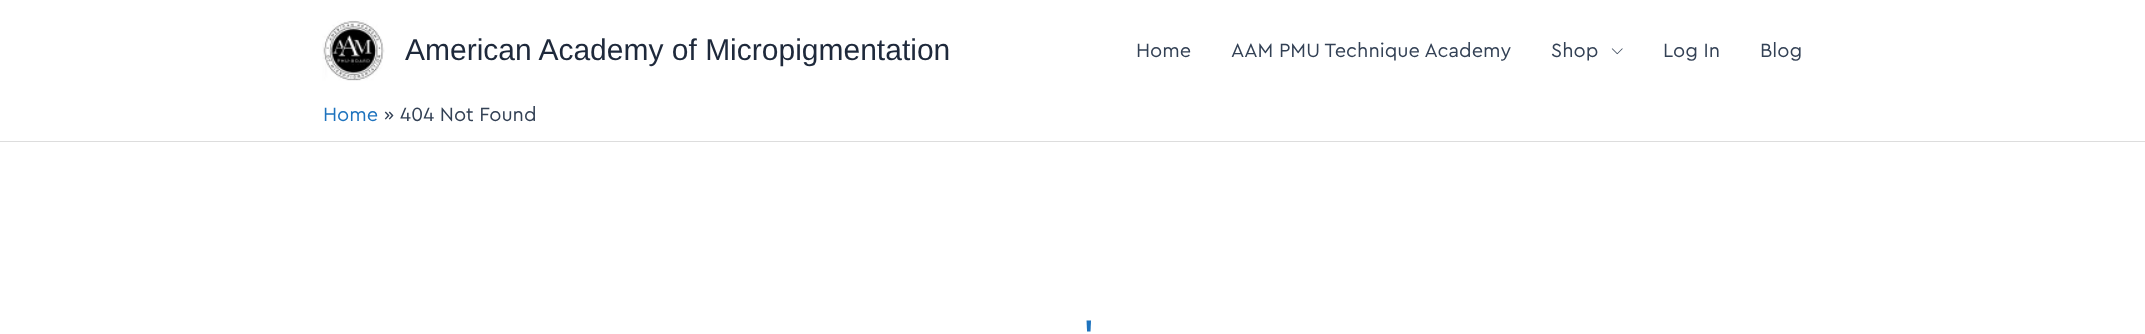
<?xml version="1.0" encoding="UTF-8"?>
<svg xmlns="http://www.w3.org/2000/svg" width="2145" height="334">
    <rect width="100%" height="100%" fill="#FFFFFF"/>
    <rect x="0" y="141" width="2145" height="1" fill="#DDDDDD"/>
    <image x="322" y="20" width="63" height="61" href="img_01.png"/>
    <text x="405" y="60" font-family="Liberation Sans" font-size="30" fill="#1E293B">American Academy of Micropigmentation</text>
    <text x="1136" y="57" font-family="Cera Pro" font-size="20" fill="#334155">Home</text>
    <text x="1231" y="57" font-family="Cera Pro" font-size="20" fill="#334155">AAM PMU Technique Academy</text>
    <text x="1551" y="57" font-family="Cera Pro" font-size="20" fill="#334155">Shop</text>
    <image x="1611" y="48" width="12" height="7" href="img_02.png"/>
    <text x="1663" y="57" font-family="Cera Pro" font-size="20" fill="#334155">Log In</text>
    <text x="1760" y="57" font-family="Cera Pro" font-size="20" fill="#334155">Blog</text>
    <text x="323" y="121" font-family="Cera Pro" font-size="20" fill="#1E73BE">Home</text>
    <text x="384" y="121" font-family="Cera Pro" font-size="20" fill="#334155">»</text>
    <text x="400" y="121" font-family="Cera Pro" font-size="20" fill="#334155">404 Not Found</text>
    <text x="1084" y="355" font-family="Liberation Sans" font-size="50" fill="#1E73BE">'</text>
</svg>
